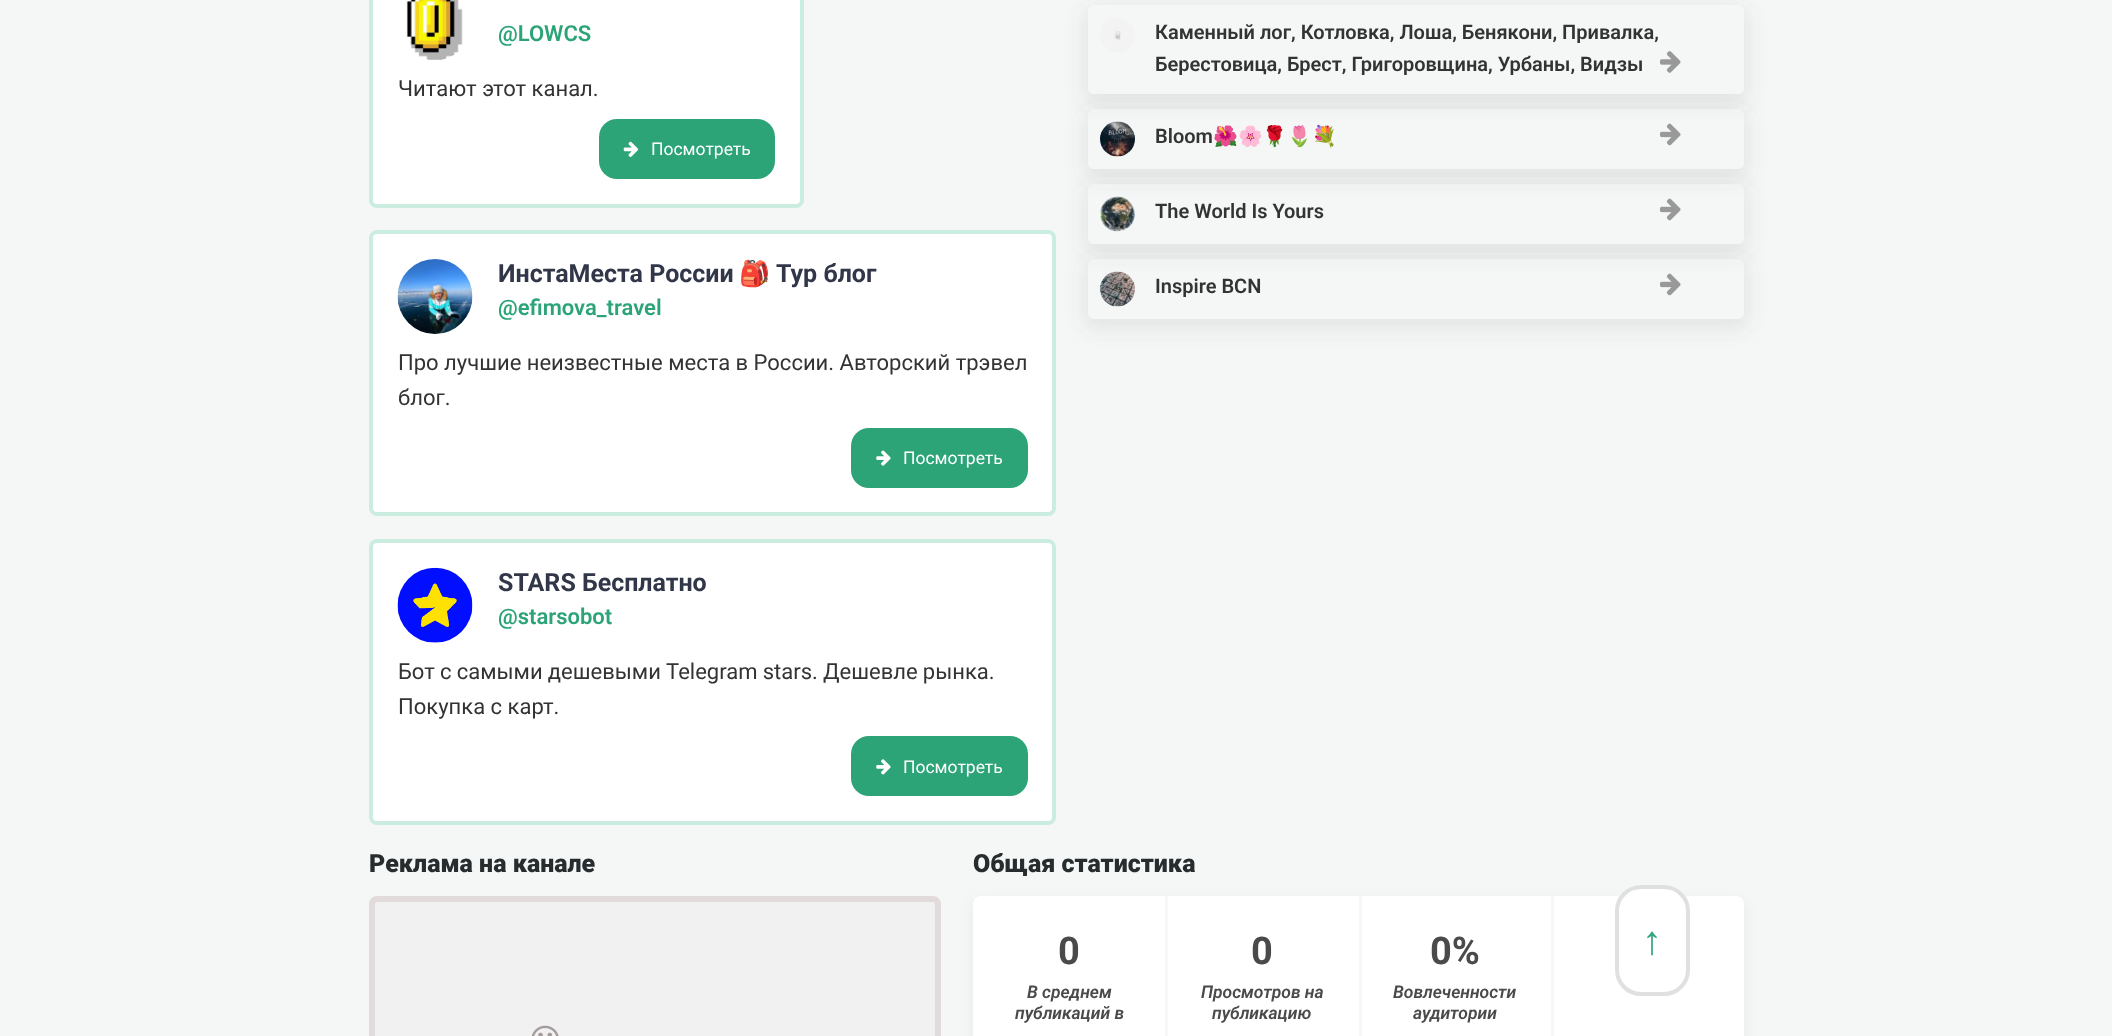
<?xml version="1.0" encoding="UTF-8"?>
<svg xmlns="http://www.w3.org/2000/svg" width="2112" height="1036">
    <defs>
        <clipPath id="clip1"><path d="M 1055 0 H 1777 V 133 H 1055 Z M 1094 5 H 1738 C 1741.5 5 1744 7.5 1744 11 V 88 C 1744 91.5 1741.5 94 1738 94 H 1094 C 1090.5 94 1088 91.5 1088 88 V 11 C 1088 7.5 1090.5 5 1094 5 Z" clip-rule="evenodd"/></clipPath>
        <filter id="blur1" x="-50%" y="-200%" width="200%" height="500%"><feGaussianBlur stdDeviation="9"/></filter>
        <clipPath id="clip2"><path d="M 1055 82 H 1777 V 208 H 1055 Z M 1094 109 H 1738 C 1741.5 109 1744 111.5 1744 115 V 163 C 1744 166.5 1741.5 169 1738 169 H 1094 C 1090.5 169 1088 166.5 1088 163 V 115 C 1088 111.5 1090.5 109 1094 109 Z" clip-rule="evenodd"/></clipPath>
        <clipPath id="clip3"><path d="M 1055 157 H 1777 V 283 H 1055 Z M 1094 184 H 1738 C 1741.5 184 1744 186.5 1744 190 V 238 C 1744 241.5 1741.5 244 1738 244 H 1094 C 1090.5 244 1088 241.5 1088 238 V 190 C 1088 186.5 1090.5 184 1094 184 Z" clip-rule="evenodd"/></clipPath>
        <clipPath id="clip4"><path d="M 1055 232 H 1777 V 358 H 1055 Z M 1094 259 H 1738 C 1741.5 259 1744 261.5 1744 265 V 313 C 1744 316.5 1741.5 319 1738 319 H 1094 C 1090.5 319 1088 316.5 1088 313 V 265 C 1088 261.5 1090.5 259 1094 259 Z" clip-rule="evenodd"/></clipPath>
        <filter id="blur2" x="-50%" y="-200%" width="200%" height="500%"><feGaussianBlur stdDeviation="8"/></filter>
    </defs>
    <rect width="100%" height="100%" fill="#F4F7F6"/>
    <rect x="371" y="-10" width="431" height="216" rx="6" fill="#FFFFFF" stroke="#CAEDE0" stroke-width="4"/>
    <image x="406" y="0" width="57" height="60" href="img_01.png"/>
    <text x="498" y="41" font-family="Roboto" font-size="22" font-weight="600" fill="#2CA478">@LOWCS</text>
    <text x="398" y="96" font-family="Roboto" font-size="22" fill="#333333">Читают этот канал.</text>
    <rect x="599" y="119" width="176" height="60" rx="18" fill="#2CA478"/>
    <image x="623" y="141" width="16" height="16" href="img_02.png"/>
    <text x="651" y="155" font-family="Roboto" font-size="17.5" fill="#FFFFFF">Посмотреть</text>
    <rect x="371" y="232" width="683" height="282" rx="6" fill="#FFFFFF" stroke="#CAEDE0" stroke-width="4"/>
    <image x="397" y="259" width="76" height="75" href="img_03.png"/>
    <text x="498" y="282" font-family="Roboto" font-size="25" font-weight="700" fill="#313649">ИнстаМеста России</text>
    <text x="739" y="282" font-family="Noto Color Emoji" font-size="25" font-weight="700" fill="#313649">🎒</text>
    <text x="776" y="282" font-family="Roboto" font-size="25" font-weight="700" fill="#313649">Тур блог</text>
    <text x="498" y="315" font-family="Roboto" font-size="22" font-weight="600" fill="#2CA478">@efimova_travel</text>
    <text font-family="Roboto" font-size="22" fill="#333333">
        <tspan x="398" y="370">Про лучшие неизвестные места в России. Авторский трэвел</tspan>
        <tspan x="398" y="405">блог.</tspan>
    </text>
    <rect x="851" y="428" width="177" height="60" rx="18" fill="#2CA478"/>
    <image x="876" y="450" width="15" height="16" href="img_04.png"/>
    <text x="903" y="464" font-family="Roboto" font-size="17.5" fill="#FFFFFF">Посмотреть</text>
    <rect x="371" y="541" width="683" height="282" rx="6" fill="#FFFFFF" stroke="#CAEDE0" stroke-width="4"/>
    <image x="397" y="567" width="76" height="76" href="img_05.png"/>
    <text x="498" y="591" font-family="Roboto" font-size="25" font-weight="700" fill="#313649">STARS Бесплатно</text>
    <text x="498" y="624" font-family="Roboto" font-size="22" font-weight="600" fill="#2CA478">@starsobot</text>
    <text font-family="Roboto" font-size="22" fill="#333333">
        <tspan x="398" y="679" word-spacing="-0.25">Бот с самыми дешевыми Telegram stars. Дешевле рынка.</tspan>
        <tspan x="398" y="714">Покупка с карт.</tspan>
    </text>
    <rect x="851" y="736" width="177" height="60" rx="18" fill="#2CA478"/>
    <image x="876" y="759" width="15" height="16" href="img_06.png"/>
    <text x="903" y="773" font-family="Roboto" font-size="17.5" fill="#FFFFFF">Посмотреть</text>
    <g clip-path="url(#clip1)">
        <rect x="1083" y="6" width="666" height="99" rx="11" fill="#585858" fill-opacity="0.11" filter="url(#blur1)"/>
    </g>
    <image x="1100" y="18" width="35" height="34" href="img_07.png"/>
    <text font-family="Roboto" font-size="20" font-weight="600" fill="#333333">
        <tspan x="1155" y="39">Каменный лог, Котловка, Лоша, Бенякони, Привалка,</tspan>
        <tspan x="1155" y="71">Берестовица, Брест, Григоровщина, Урбаны, Видзы</tspan>
    </text>
    <image x="1660" y="51" width="21" height="22" href="img_08.png"/>
    <g clip-path="url(#clip2)">
        <rect x="1083" y="110" width="666" height="70" rx="11" fill="#585858" fill-opacity="0.11" filter="url(#blur1)"/>
    </g>
    <image x="1100" y="121" width="35" height="36" href="img_09.png"/>
    <text x="1155" y="143" font-family="Roboto" font-size="20" font-weight="600" fill="#333333">Bloom</text>
    <text x="1213" y="143" font-family="Noto Color Emoji" font-size="20" font-weight="700" fill="#333333">🌺🌸🌹🌷💐</text>
    <image x="1660" y="123" width="21" height="23" href="img_10.png"/>
    <g clip-path="url(#clip3)">
        <rect x="1083" y="185" width="666" height="70" rx="11" fill="#585858" fill-opacity="0.11" filter="url(#blur1)"/>
    </g>
    <image x="1100" y="196" width="35" height="36" href="img_11.png"/>
    <text x="1155" y="218" font-family="Roboto" font-size="20" font-weight="600" fill="#333333">The World Is Yours</text>
    <image x="1660" y="198" width="21" height="23" href="img_10.png"/>
    <g clip-path="url(#clip4)">
        <rect x="1083" y="260" width="666" height="70" rx="11" fill="#585858" fill-opacity="0.11" filter="url(#blur1)"/>
    </g>
    <image x="1100" y="271" width="35" height="36" href="img_12.png"/>
    <text x="1155" y="293" font-family="Roboto" font-size="20" font-weight="600" fill="#333333">Inspire BCN</text>
    <image x="1660" y="273" width="21" height="23" href="img_10.png"/>
    <text x="369" y="872" font-family="Roboto" font-size="25" font-weight="900" fill="#272C2F">Реклама на канале</text>
    <rect x="372" y="899" width="566" height="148" rx="5" fill="#F1F1F1" stroke="#E2DBDB" stroke-width="6"/>
    <image x="531" y="1025" width="28" height="11" href="img_13.png"/>
    <text x="973" y="872" font-family="Roboto" font-size="25" font-weight="900" fill="#272C2F">Общая статистика</text>
    <rect x="973" y="903" width="771" height="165" rx="8" fill="#000000" fill-opacity="0.06" filter="url(#blur2)"/>
    <rect x="973" y="896" width="771" height="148" rx="8" fill="#FFFFFF"/>
    <text x="1058" y="964" font-family="Roboto" font-size="38" font-weight="700" fill="#4A4A4A">0</text>
    <rect x="1165" y="896" width="3" height="140" fill="#F8F8F8"/>
    <text x="1027" y="998" font-family="Roboto" font-size="17.5" font-weight="600" font-style="italic" fill="#4A4A4A">В среднем</text>
    <text x="1015" y="1019" font-family="Roboto" font-size="17.5" font-weight="600" font-style="italic" fill="#4A4A4A">публикаций в</text>
    <text x="1251" y="964" font-family="Roboto" font-size="38" font-weight="700" fill="#4A4A4A">0</text>
    <rect x="1359" y="896" width="3" height="140" fill="#F8F8F8"/>
    <text x="1201" y="998" font-family="Roboto" font-size="17.5" font-weight="600" font-style="italic" fill="#4A4A4A">Просмотров на</text>
    <text x="1212" y="1019" font-family="Roboto" font-size="17.5" font-weight="600" font-style="italic" fill="#4A4A4A">публикацию</text>
    <text x="1430" y="964" font-family="Roboto" font-size="38" font-weight="700" fill="#4A4A4A">0%</text>
    <rect x="1551" y="896" width="3" height="140" fill="#F8F8F8"/>
    <text x="1393" y="998" font-family="Roboto" font-size="17.5" font-weight="600" font-style="italic" fill="#4A4A4A">Вовлеченности</text>
    <text x="1413" y="1019" font-family="Roboto" font-size="17.5" font-weight="600" font-style="italic" fill="#4A4A4A">аудитории</text>
    <rect x="1615" y="885" width="75" height="111" rx="26" fill="#FFFFFF" fill-opacity="0.97"/>
    <rect x="1617" y="887" width="71" height="107" rx="24" fill="none" stroke="#DFDFDF" stroke-opacity="0.97" stroke-width="4"/>
    <text x="1642" y="954" font-family="Liberation Sans" font-size="40" font-weight="700" fill="#32A77C">↑</text>
</svg>
